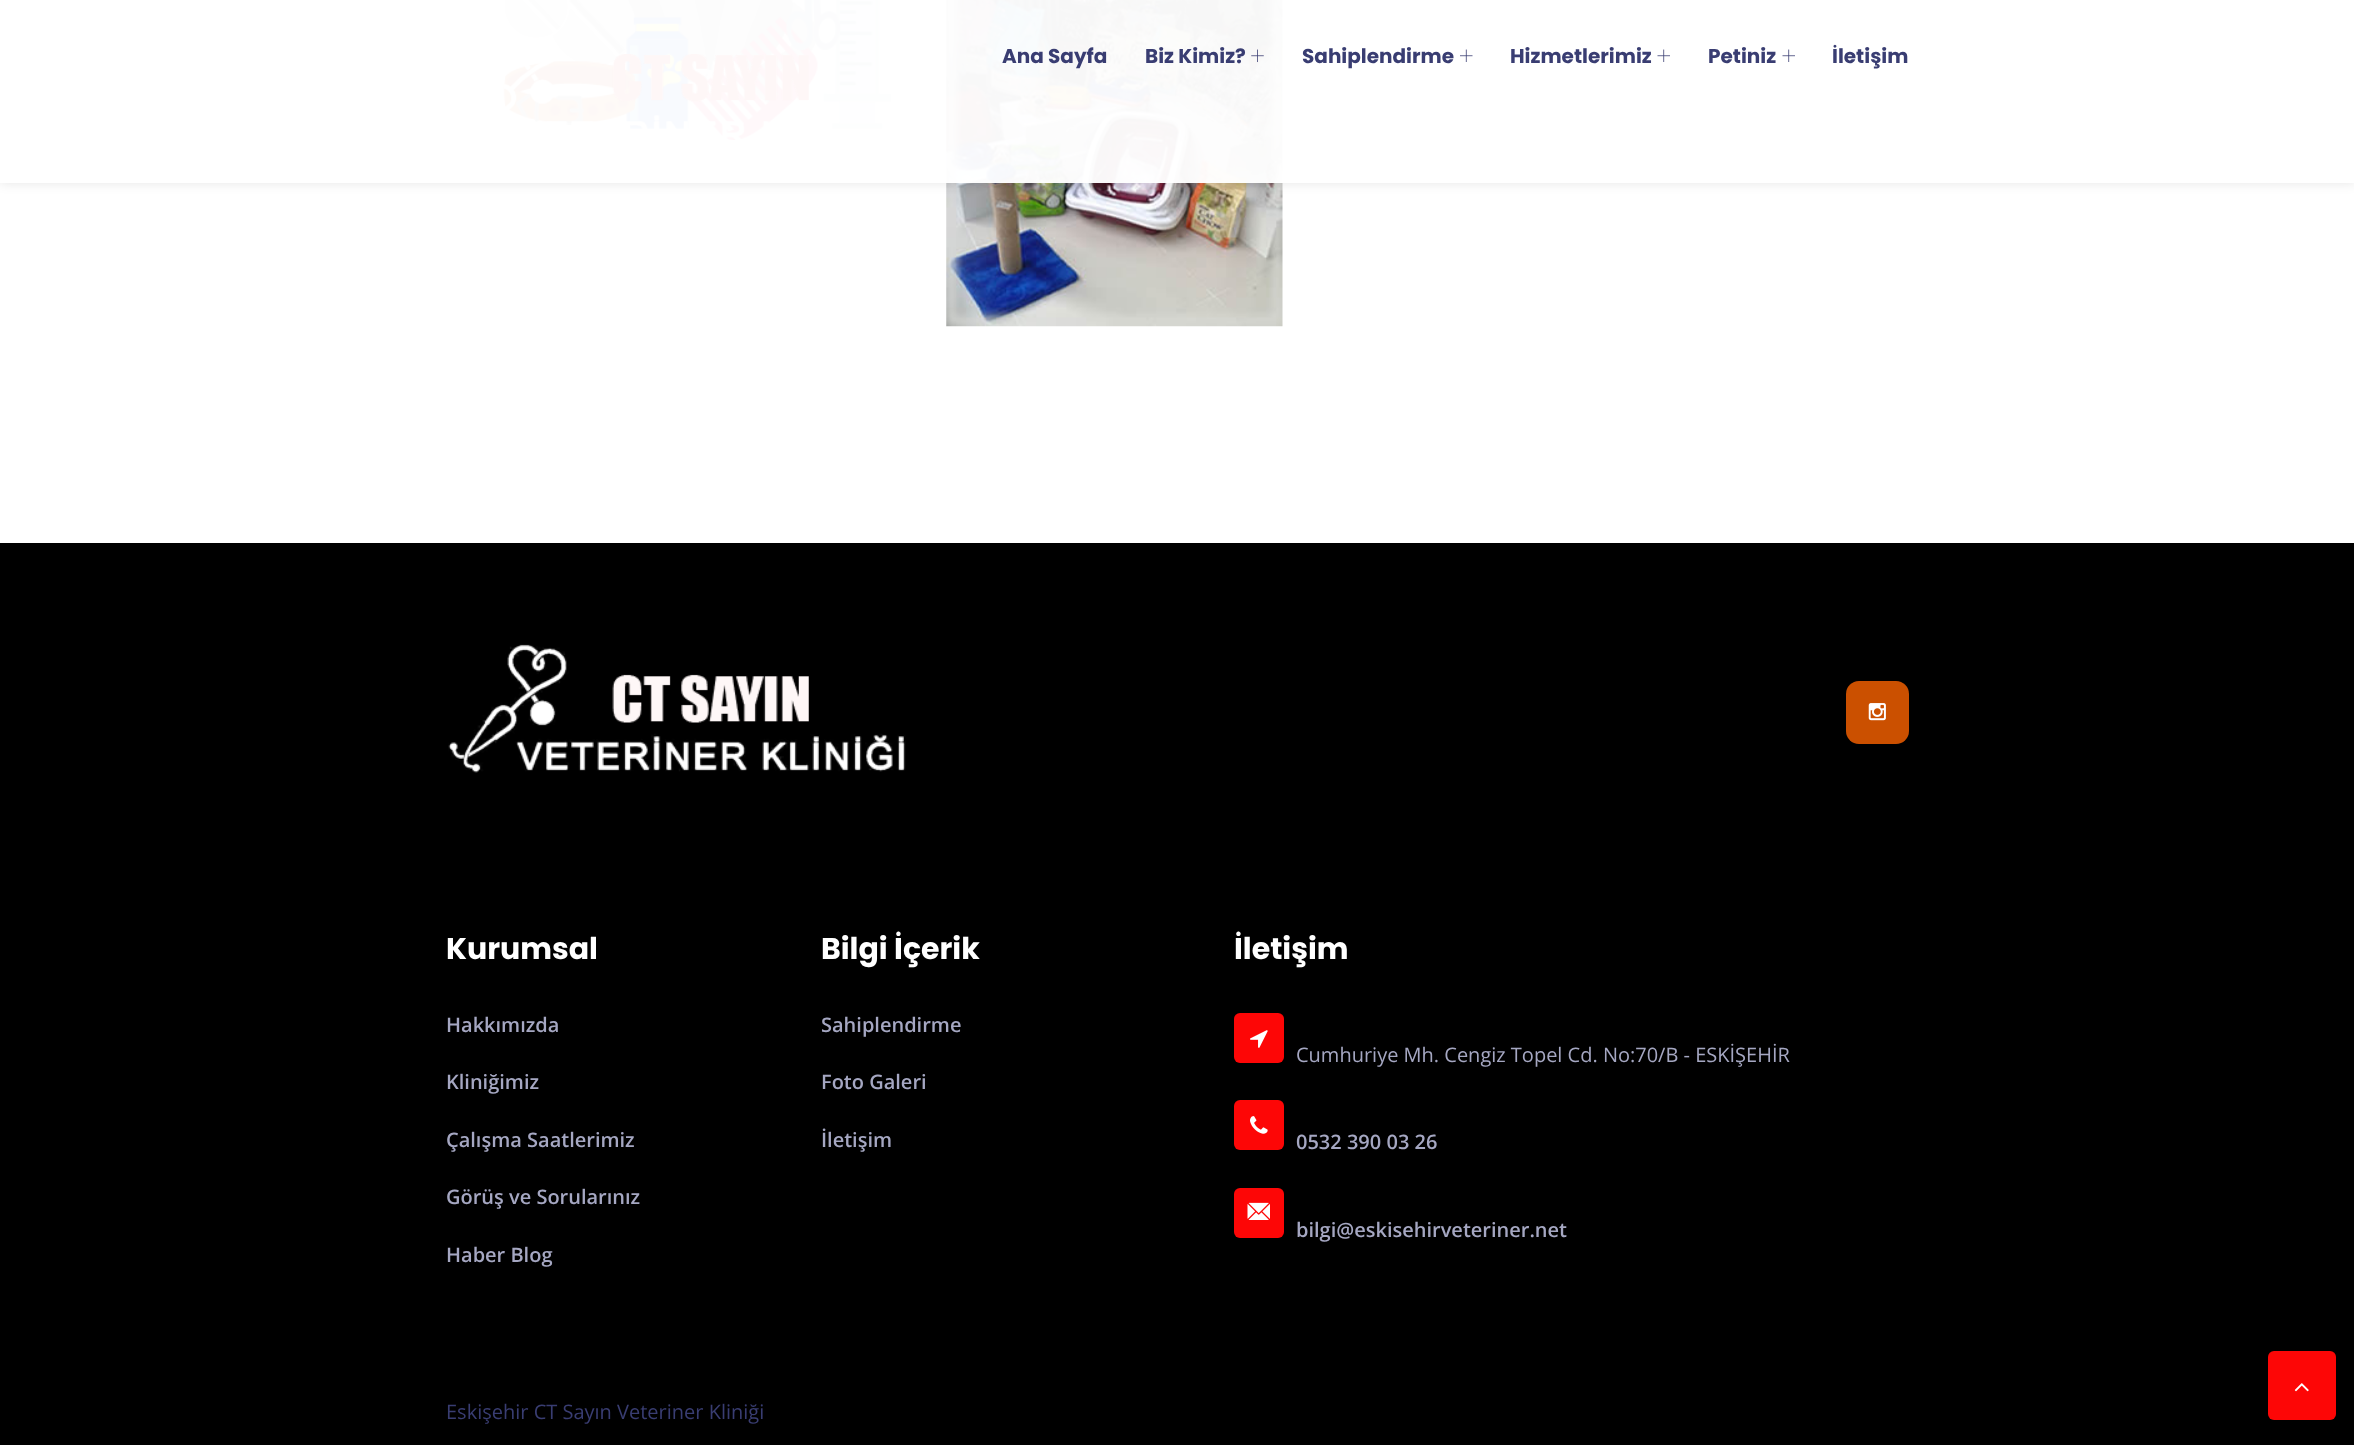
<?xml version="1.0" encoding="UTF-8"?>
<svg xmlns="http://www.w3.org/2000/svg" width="2354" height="1445">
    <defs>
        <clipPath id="clip1"><path d="M 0 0 H 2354 V 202 H 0 Z M 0 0 H 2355 V 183 H 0 Z" clip-rule="evenodd"/></clipPath>
        <filter id="blur1" x="-50%" y="-200%" width="200%" height="500%"><feGaussianBlur stdDeviation="6"/></filter>
    </defs>
    <rect width="100%" height="100%" fill="#FFFFFF"/>
    <image x="502" y="0" width="390" height="141" href="img_01.png"/>
    <image x="946" y="0" width="337" height="327" href="img_02.png"/>
    <rect x="1571" y="-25" width="338" height="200" rx="25" fill="#F4F2EF"/>
    <g clip-path="url(#clip1)">
        <rect x="0" y="0" width="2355" height="183" fill="#000000" fill-opacity="0.1" filter="url(#blur1)"/>
    </g>
    <rect x="0" y="0" width="2354" height="183" fill="#FFFFFF" fill-opacity="0.97"/>
    <image x="504" y="54" width="305" height="86" href="img_03.png"/>
    <text x="1002" y="63" font-family="Poppins" font-size="20" font-weight="700" fill="#393D72">Ana Sayfa</text>
    <text x="1145" y="63" font-family="Poppins" font-size="20" font-weight="700" fill="#393D72">Biz Kimiz?</text>
    <image x="1251" y="49" width="13" height="14" href="img_04.png"/>
    <text x="1302" y="63" font-family="Poppins" font-size="20" font-weight="700" fill="#393D72">Sahiplendirme</text>
    <image x="1460" y="49" width="13" height="13" href="img_05.png"/>
    <text x="1510" y="63" font-family="Poppins" font-size="20" font-weight="700" fill="#393D72">Hizmetlerimiz</text>
    <image x="1657" y="49" width="13" height="13" href="img_06.png"/>
    <text x="1708" y="63" font-family="Poppins" font-size="20" font-weight="700" fill="#393D72">Petiniz</text>
    <image x="1782" y="49" width="13" height="13" href="img_07.png"/>
    <text x="1832" y="63" font-family="Poppins" font-size="20" font-weight="700" fill="#393D72">İletişim</text>
    <rect x="0" y="543" width="2354" height="902" fill="#000000"/>
    <image x="448" y="644" width="458" height="129" href="img_08.png"/>
    <rect x="1846" y="681" width="63" height="63" rx="13" fill="#CB5000"/>
    <image x="1868" y="703" width="18" height="18" href="img_09.png"/>
    <text x="446" y="959" font-family="Poppins" font-size="30" font-weight="700" fill="#FFFFFF">Kurumsal</text>
    <text x="446" y="1032" font-family="Open Sans" font-size="20" font-weight="600" fill="#A5A7C2">Hakkımızda</text>
    <text x="446" y="1089" font-family="Open Sans" font-size="20" font-weight="600" fill="#A5A7C2">Kliniğimiz</text>
    <text x="446" y="1147" font-family="Open Sans" font-size="20" font-weight="600" fill="#A5A7C2">Çalışma Saatlerimiz</text>
    <text x="446" y="1204" font-family="Open Sans" font-size="20" font-weight="600" fill="#A5A7C2">Görüş ve Sorularınız</text>
    <text x="446" y="1262" font-family="Open Sans" font-size="20" font-weight="600" fill="#A5A7C2">Haber Blog</text>
    <text x="821" y="959" font-family="Poppins" font-size="30" font-weight="700" fill="#FFFFFF">Bilgi İçerik</text>
    <text x="821" y="1032" font-family="Open Sans" font-size="20" font-weight="600" fill="#A5A7C2">Sahiplendirme</text>
    <text x="821" y="1089" font-family="Open Sans" font-size="20" font-weight="600" fill="#A5A7C2">Foto Galeri</text>
    <text x="821" y="1147" font-family="Open Sans" font-size="20" font-weight="600" fill="#A5A7C2">İletişim</text>
    <text x="1234" y="959" font-family="Poppins" font-size="30" font-weight="700" fill="#FFFFFF">İletişim</text>
    <rect x="1234" y="1013" width="50" height="50" rx="6" fill="#FD0606"/>
    <image x="1250" y="1030" width="18" height="18" href="img_10.png"/>
    <text x="1296" y="1062" font-family="Open Sans" font-size="20" fill="#A5A7C2">Cumhuriye Mh. Cengiz Topel Cd. No:70/B - ESKİŞEHİR</text>
    <rect x="1234" y="1100" width="50" height="50" rx="6" fill="#FD0606"/>
    <image x="1250" y="1116" width="18" height="18" href="img_11.png"/>
    <text x="1296" y="1149" font-family="Open Sans" font-size="20" font-weight="600" fill="#A5A7C2">0532 390 03 26</text>
    <rect x="1234" y="1188" width="50" height="50" rx="6" fill="#FD0606"/>
    <image x="1247" y="1202" width="23" height="18" href="img_12.png"/>
    <text x="1296" y="1237" font-family="Open Sans" font-size="20" font-weight="600" fill="#A5A7C2">bilgi@eskisehirveteriner.net</text>
    <text x="446" y="1419" font-family="Open Sans" font-size="20" fill="#393D72">Eskişehir CT Sayın Veteriner Kliniği</text>
    <rect x="2268" y="1351" width="68" height="69" rx="6" fill="#FD0606"/>
    <image x="2294" y="1383" width="15" height="9" href="img_13.png"/>
</svg>
